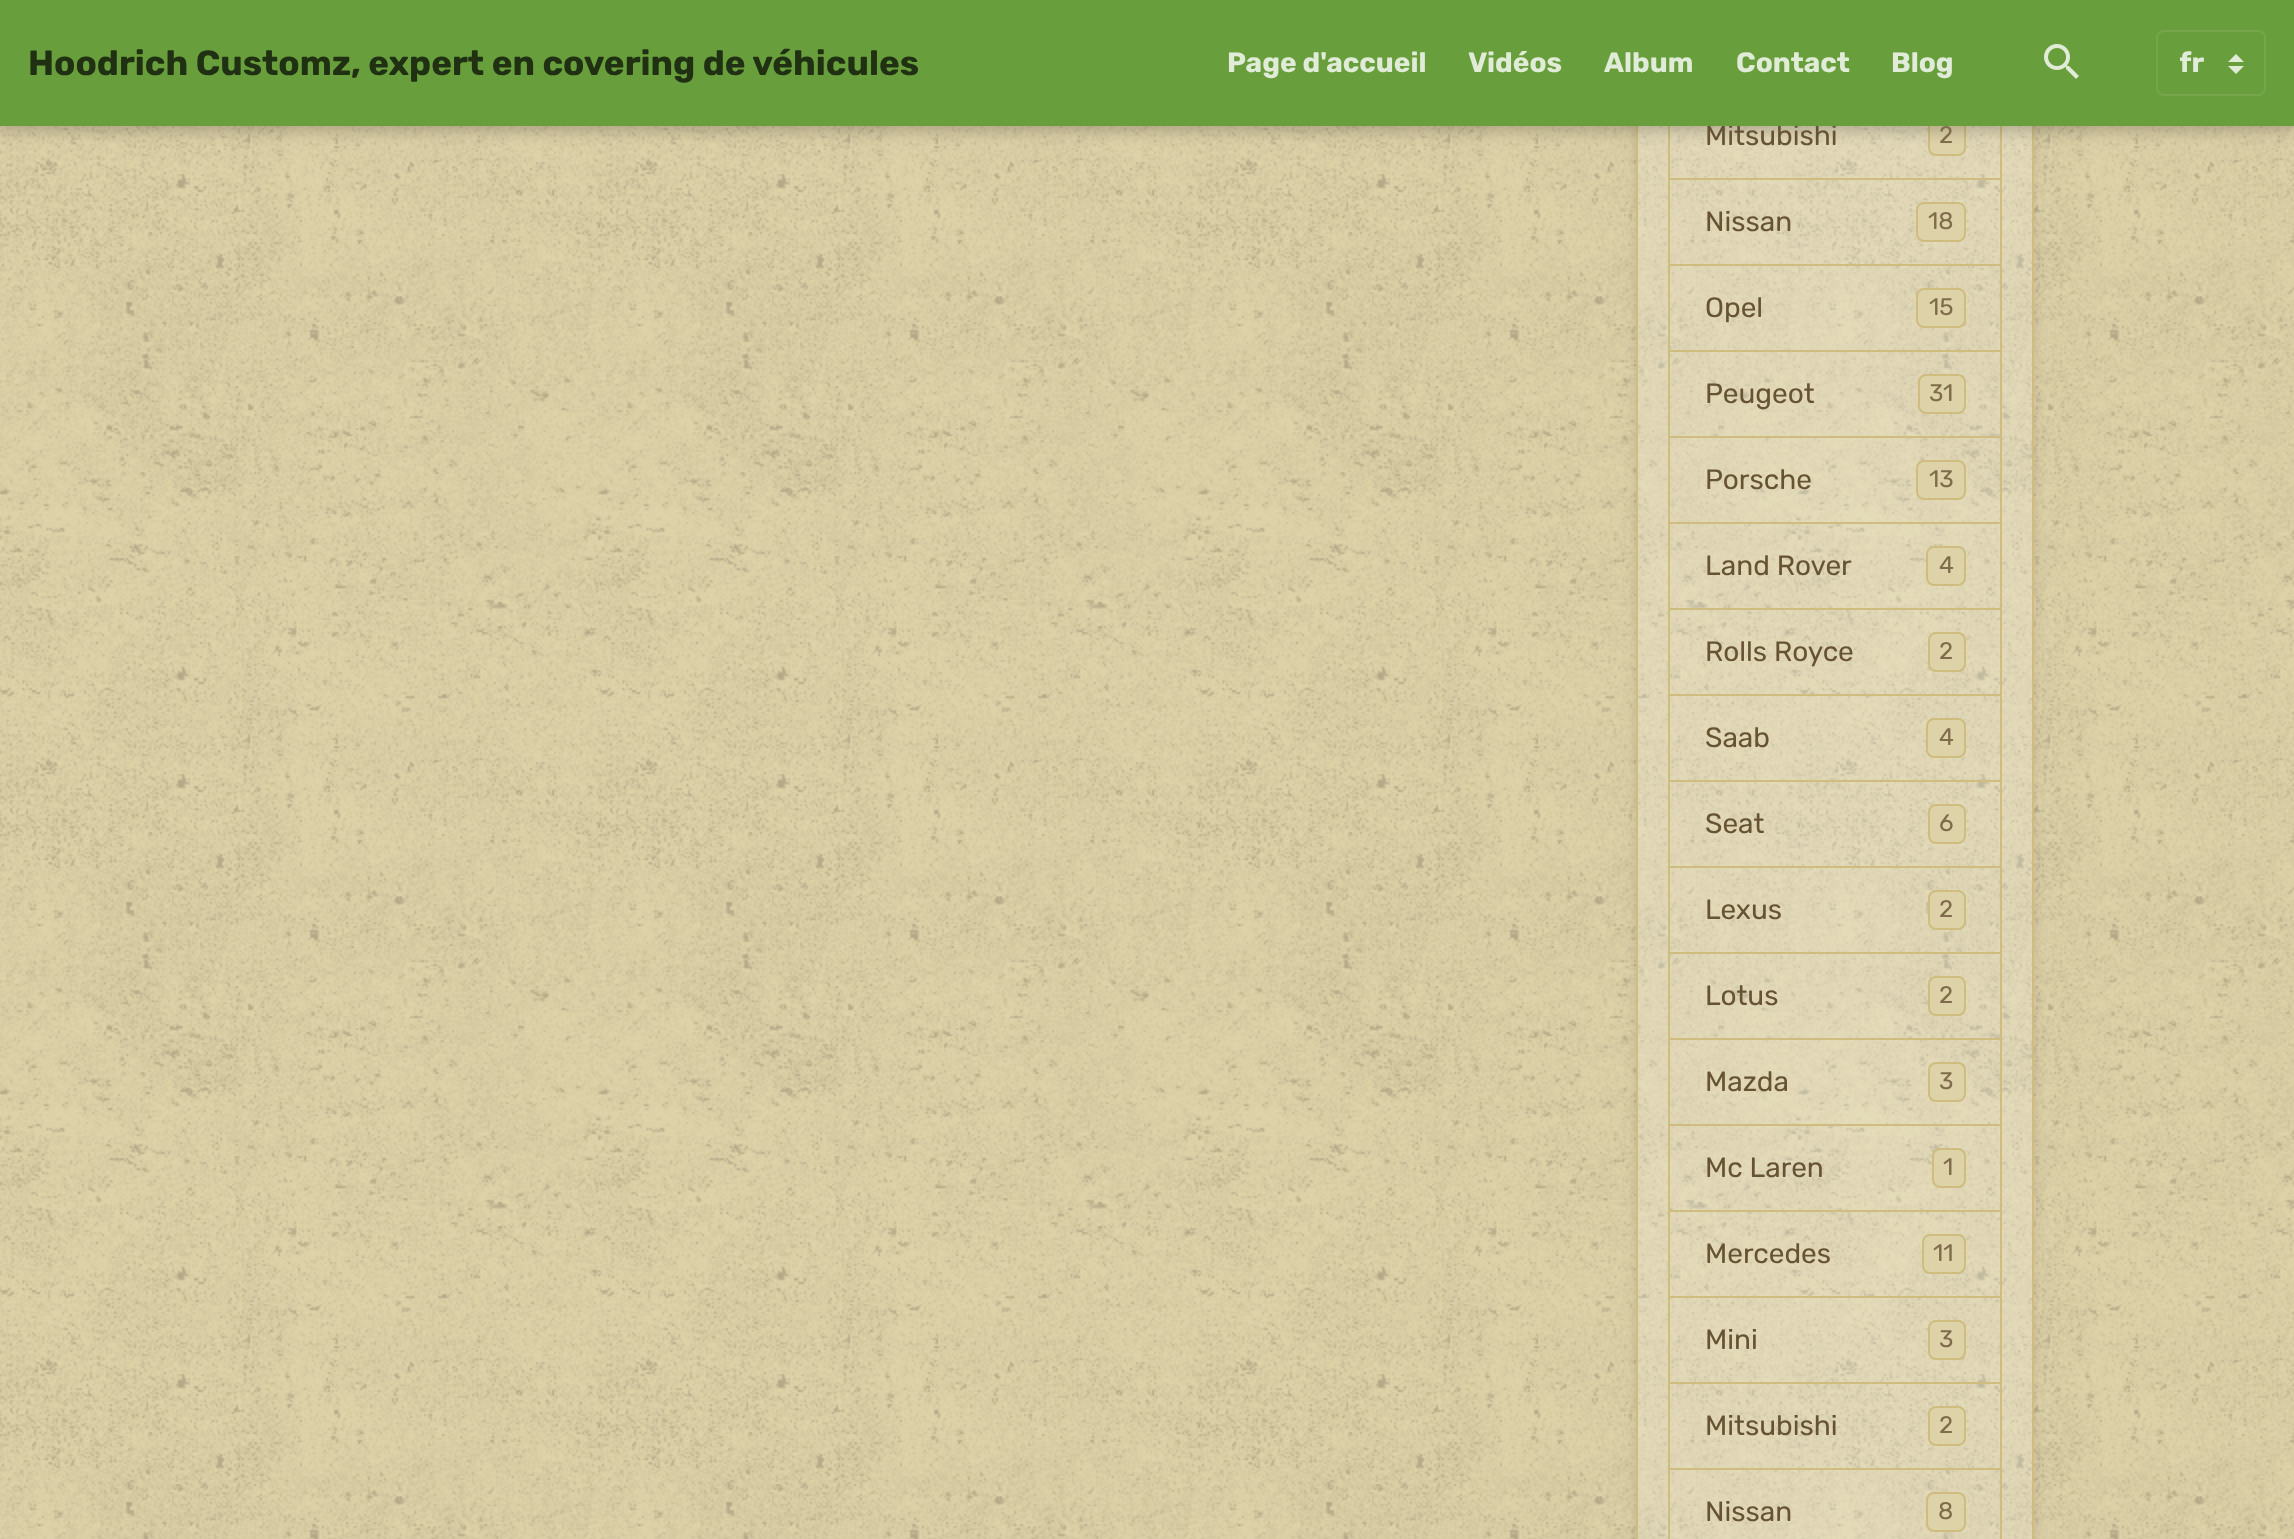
<?xml version="1.0" encoding="UTF-8"?>
<svg xmlns="http://www.w3.org/2000/svg" width="2294" height="1539">
    <defs>
        <clipPath id="clip1"><path d="M 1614 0 H 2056 V 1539 H 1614 Z M 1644 -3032 H 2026 C 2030.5 -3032 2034 -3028.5 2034 -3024 V 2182 C 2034 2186.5 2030.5 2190 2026 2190 H 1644 C 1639.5 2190 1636 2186.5 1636 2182 V -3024 C 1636 -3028.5 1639.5 -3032 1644 -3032 Z" clip-rule="evenodd"/></clipPath>
        <filter id="blur1" x="-50%" y="-200%" width="200%" height="500%"><feGaussianBlur stdDeviation="7"/></filter>
        <clipPath id="clip2"><rect x="2180" y="42" width="36" height="42"/></clipPath>
    </defs>
    <rect width="100%" height="100%" fill="#DED2A8"/>
    <image x="0" y="126" width="2294" height="1413" href="img_01.png"/>
    <g clip-path="url(#clip1)">
        <rect x="1636" y="-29" width="398" height="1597" rx="8" fill="#000000" fill-opacity="0.1" filter="url(#blur1)"/>
    </g>
    <rect x="1638" y="126" width="394" height="1413" fill="#FFFFFF" fill-opacity="0.2"/>
    <rect x="1637" y="-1" width="396" height="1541" fill="none" stroke="#CEBD7E" stroke-width="2"/>
    <rect x="1669" y="93" width="332" height="86" fill="none" stroke="#CEBD7E" stroke-width="2"/>
    <rect x="1929" y="117" width="36" height="38" rx="7" fill="#DED2A8" stroke="#CEBD7E" stroke-width="2"/>
    <rect x="0" y="6" width="2294" height="126" fill="#000000" fill-opacity="0.2" filter="url(#blur1)"/>
    <text x="1705" y="145" font-family="Rubik" font-size="28" fill="#665333">Mitsubishi</text>
    <text x="1939" y="143" font-family="Rubik" font-size="24" fill="#7E6C4A">2</text>
    <rect x="0" y="0" width="2294" height="126" fill="#699E3C"/>
    <text x="28" y="75" font-family="Rubik" font-size="35" font-weight="700" fill="#203012">Hoodrich Customz, expert en covering de véhicules</text>
    <text x="1227" y="72" font-family="Rubik" font-size="28" font-weight="700" fill="#E1ECD8">Page d'accueil</text>
    <text x="1468" y="72" font-family="Rubik" font-size="28" font-weight="700" fill="#E1ECD8">Vidéos</text>
    <text x="1604" y="72" font-family="Rubik" font-size="28" font-weight="700" fill="#E1ECD8">Album</text>
    <text x="1736" y="72" font-family="Rubik" font-size="28" font-weight="700" fill="#E1ECD8">Contact</text>
    <text x="1891" y="72" font-family="Rubik" font-size="28" font-weight="700" fill="#E1ECD8">Blog</text>
    <image x="2044" y="44" width="35" height="35" href="img_02.png"/>
    <path d="M 2236 54 L 2228 62 H 2244 Z M 2236 74 L 2228 66 H 2244 Z" fill="#E1ECD8"/>
    <rect x="2157" y="31" width="108" height="64" rx="7" fill="none" stroke="#75A64C" stroke-width="2"/>
    <g clip-path="url(#clip2)">
        <text x="2179" y="72" font-family="Rubik" font-size="28" font-weight="700" fill="#E1ECD8">fr</text>
    </g>
    <rect x="1669" y="179" width="332" height="86" fill="none" stroke="#CEBD7E" stroke-width="2"/>
    <text x="1705" y="231" font-family="Rubik" font-size="28" fill="#665333">Nissan</text>
    <rect x="1917" y="203" width="48" height="38" rx="7" fill="#DED2A8" stroke="#CEBD7E" stroke-width="2"/>
    <text x="1928" y="229" font-family="Rubik" font-size="24" fill="#7E6C4A">18</text>
    <rect x="1669" y="265" width="332" height="86" fill="none" stroke="#CEBD7E" stroke-width="2"/>
    <text x="1705" y="317" font-family="Rubik" font-size="28" fill="#665333">Opel</text>
    <rect x="1917" y="289" width="48" height="38" rx="7" fill="#DED2A8" stroke="#CEBD7E" stroke-width="2"/>
    <text x="1929" y="315" font-family="Rubik" font-size="24" fill="#7E6C4A">15</text>
    <rect x="1669" y="351" width="332" height="86" fill="none" stroke="#CEBD7E" stroke-width="2"/>
    <text x="1705" y="403" font-family="Rubik" font-size="28" fill="#665333">Peugeot</text>
    <rect x="1919" y="375" width="46" height="38" rx="7" fill="#DED2A8" stroke="#CEBD7E" stroke-width="2"/>
    <text x="1929" y="401" font-family="Rubik" font-size="24" fill="#7E6C4A">31</text>
    <rect x="1669" y="437" width="332" height="86" fill="none" stroke="#CEBD7E" stroke-width="2"/>
    <text x="1705" y="489" font-family="Rubik" font-size="28" fill="#665333">Porsche</text>
    <rect x="1917" y="461" width="48" height="38" rx="7" fill="#DED2A8" stroke="#CEBD7E" stroke-width="2"/>
    <text x="1929" y="487" font-family="Rubik" font-size="24" fill="#7E6C4A">13</text>
    <rect x="1669" y="523" width="332" height="86" fill="none" stroke="#CEBD7E" stroke-width="2"/>
    <text x="1705" y="575" font-family="Rubik" font-size="28" fill="#665333">Land Rover</text>
    <rect x="1927" y="547" width="38" height="38" rx="7" fill="#DED2A8" stroke="#CEBD7E" stroke-width="2"/>
    <text x="1939" y="573" font-family="Rubik" font-size="24" fill="#7E6C4A">4</text>
    <rect x="1669" y="609" width="332" height="86" fill="none" stroke="#CEBD7E" stroke-width="2"/>
    <text x="1705" y="661" font-family="Rubik" font-size="28" fill="#665333">Rolls Royce</text>
    <rect x="1929" y="633" width="36" height="38" rx="7" fill="#DED2A8" stroke="#CEBD7E" stroke-width="2"/>
    <text x="1939" y="659" font-family="Rubik" font-size="24" fill="#7E6C4A">2</text>
    <rect x="1669" y="695" width="332" height="86" fill="none" stroke="#CEBD7E" stroke-width="2"/>
    <text x="1705" y="747" font-family="Rubik" font-size="28" fill="#665333">Saab</text>
    <rect x="1927" y="719" width="38" height="38" rx="7" fill="#DED2A8" stroke="#CEBD7E" stroke-width="2"/>
    <text x="1939" y="745" font-family="Rubik" font-size="24" fill="#7E6C4A">4</text>
    <rect x="1669" y="781" width="332" height="86" fill="none" stroke="#CEBD7E" stroke-width="2"/>
    <text x="1705" y="833" font-family="Rubik" font-size="28" fill="#665333">Seat</text>
    <rect x="1929" y="805" width="36" height="38" rx="7" fill="#DED2A8" stroke="#CEBD7E" stroke-width="2"/>
    <text x="1939" y="831" font-family="Rubik" font-size="24" fill="#7E6C4A">6</text>
    <rect x="1669" y="867" width="332" height="86" fill="none" stroke="#CEBD7E" stroke-width="2"/>
    <text x="1705" y="919" font-family="Rubik" font-size="28" fill="#665333">Lexus</text>
    <rect x="1929" y="891" width="36" height="38" rx="7" fill="#DED2A8" stroke="#CEBD7E" stroke-width="2"/>
    <text x="1939" y="917" font-family="Rubik" font-size="24" fill="#7E6C4A">2</text>
    <rect x="1669" y="953" width="332" height="86" fill="none" stroke="#CEBD7E" stroke-width="2"/>
    <text x="1705" y="1005" font-family="Rubik" font-size="28" fill="#665333">Lotus</text>
    <rect x="1929" y="977" width="36" height="38" rx="7" fill="#DED2A8" stroke="#CEBD7E" stroke-width="2"/>
    <text x="1939" y="1003" font-family="Rubik" font-size="24" fill="#7E6C4A">2</text>
    <rect x="1669" y="1039" width="332" height="86" fill="none" stroke="#CEBD7E" stroke-width="2"/>
    <text x="1705" y="1091" font-family="Rubik" font-size="28" fill="#665333">Mazda</text>
    <rect x="1929" y="1063" width="36" height="38" rx="7" fill="#DED2A8" stroke="#CEBD7E" stroke-width="2"/>
    <text x="1939" y="1089" font-family="Rubik" font-size="24" fill="#7E6C4A">3</text>
    <rect x="1669" y="1125" width="332" height="86" fill="none" stroke="#CEBD7E" stroke-width="2"/>
    <text x="1705" y="1177" font-family="Rubik" font-size="28" fill="#665333">Mc Laren</text>
    <rect x="1933" y="1149" width="32" height="38" rx="7" fill="#DED2A8" stroke="#CEBD7E" stroke-width="2"/>
    <text x="1943" y="1175" font-family="Rubik" font-size="24" fill="#7E6C4A">1</text>
    <rect x="1669" y="1211" width="332" height="86" fill="none" stroke="#CEBD7E" stroke-width="2"/>
    <text x="1705" y="1263" font-family="Rubik" font-size="28" fill="#665333">Mercedes</text>
    <rect x="1923" y="1235" width="42" height="38" rx="7" fill="#DED2A8" stroke="#CEBD7E" stroke-width="2"/>
    <text x="1933" y="1261" font-family="Rubik" font-size="24" fill="#7E6C4A">11</text>
    <rect x="1669" y="1297" width="332" height="86" fill="none" stroke="#CEBD7E" stroke-width="2"/>
    <text x="1705" y="1349" font-family="Rubik" font-size="28" fill="#665333">Mini</text>
    <rect x="1929" y="1321" width="36" height="38" rx="7" fill="#DED2A8" stroke="#CEBD7E" stroke-width="2"/>
    <text x="1939" y="1347" font-family="Rubik" font-size="24" fill="#7E6C4A">3</text>
    <rect x="1669" y="1383" width="332" height="86" fill="none" stroke="#CEBD7E" stroke-width="2"/>
    <text x="1705" y="1435" font-family="Rubik" font-size="28" fill="#665333">Mitsubishi</text>
    <rect x="1929" y="1407" width="36" height="38" rx="7" fill="#DED2A8" stroke="#CEBD7E" stroke-width="2"/>
    <text x="1939" y="1433" font-family="Rubik" font-size="24" fill="#7E6C4A">2</text>
    <rect x="1669" y="1469" width="332" height="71" fill="none" stroke="#CEBD7E" stroke-width="2"/>
    <text x="1705" y="1521" font-family="Rubik" font-size="28" fill="#665333">Nissan</text>
    <rect x="1927" y="1493" width="38" height="38" rx="7" fill="#DED2A8" stroke="#CEBD7E" stroke-width="2"/>
    <text x="1938" y="1519" font-family="Rubik" font-size="24" fill="#7E6C4A">8</text>
</svg>
